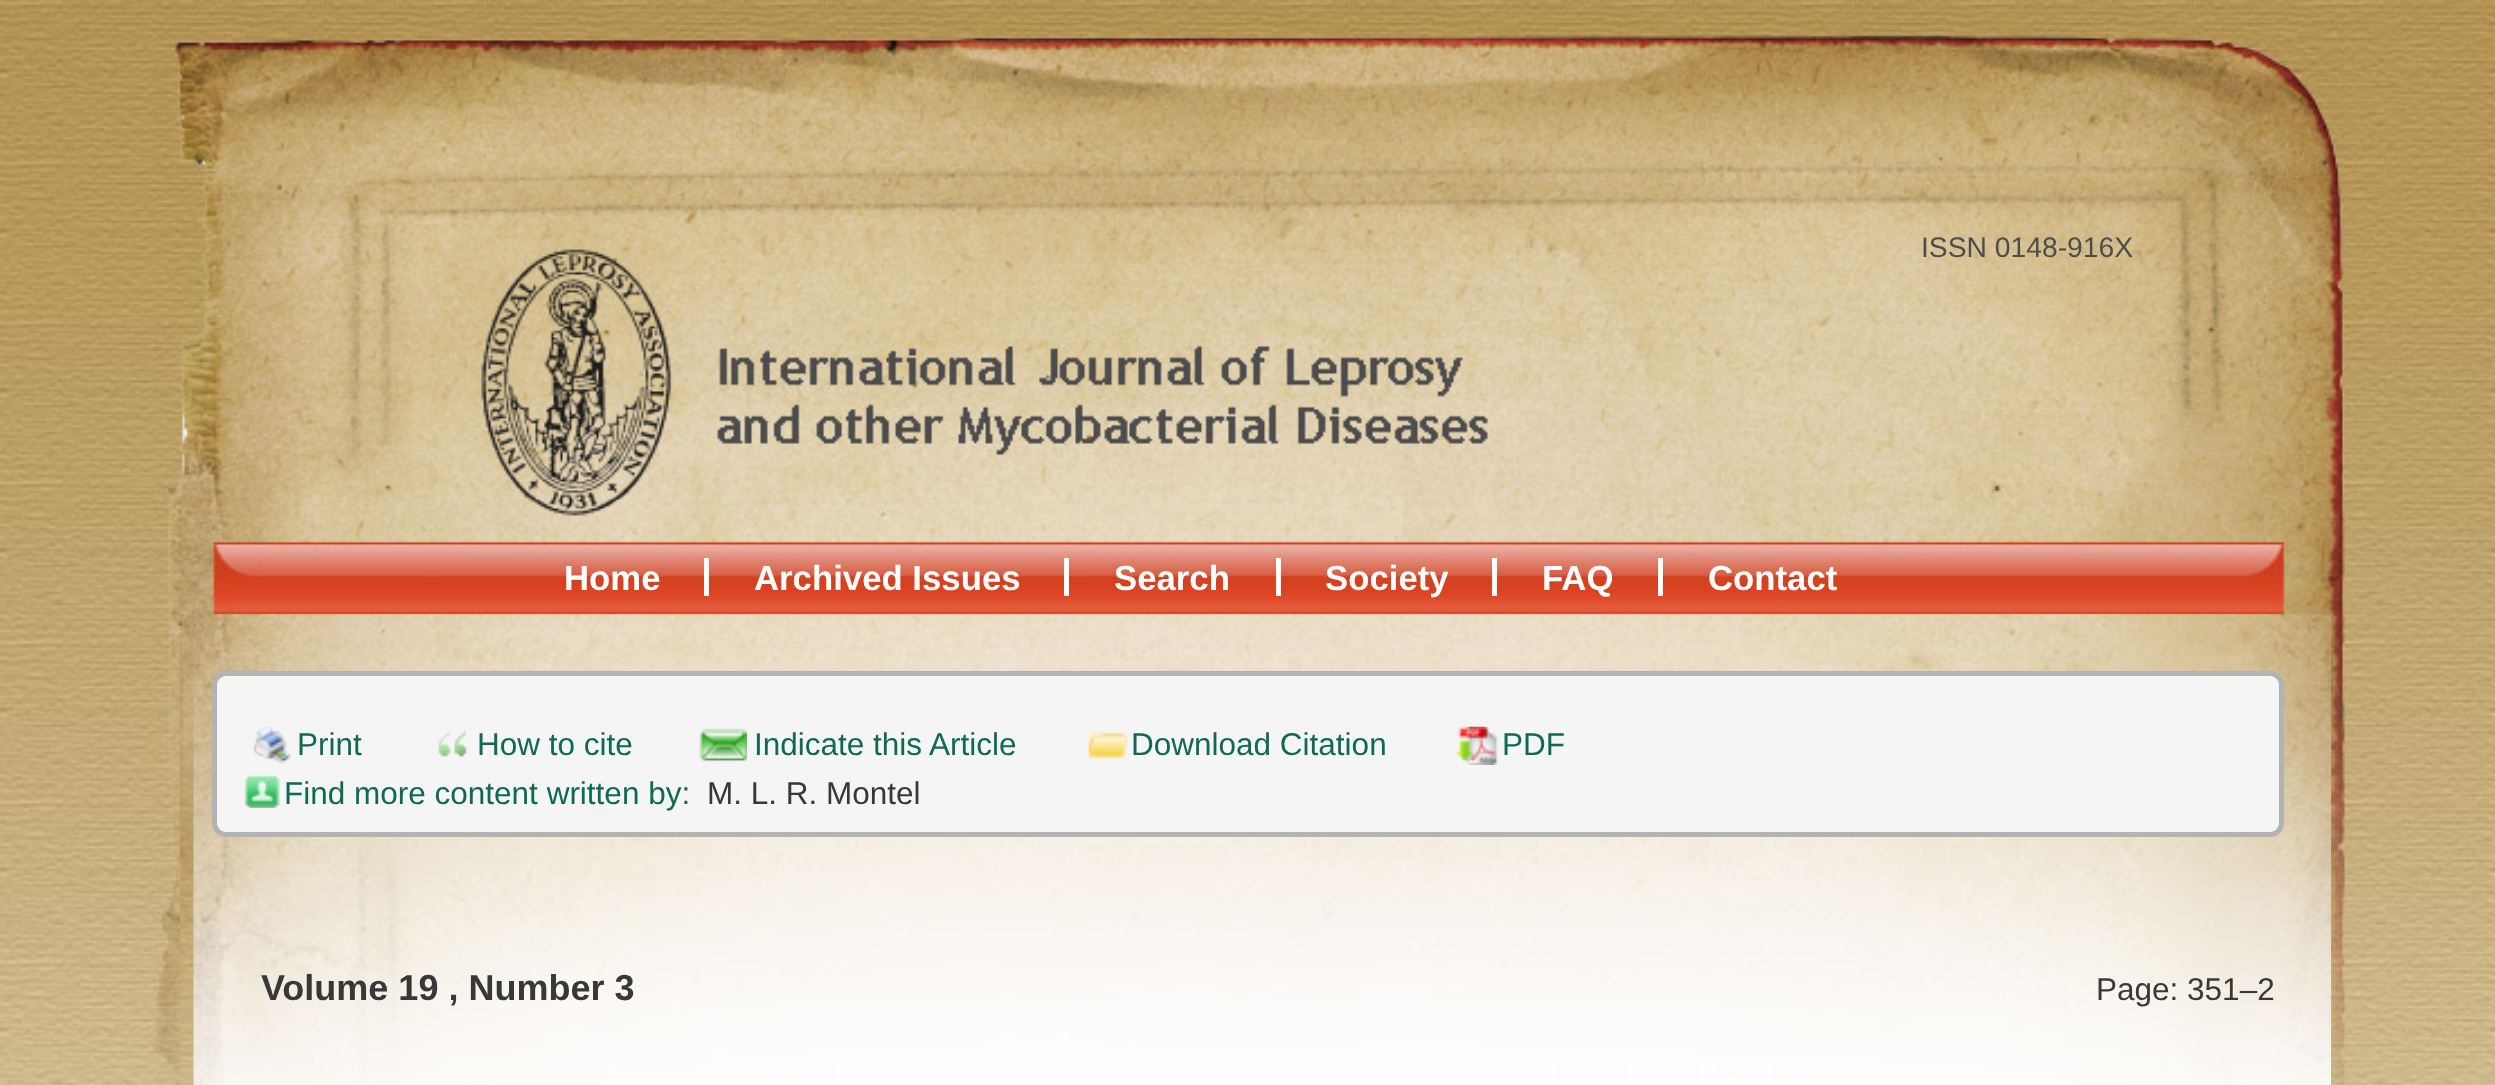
<?xml version="1.0" encoding="UTF-8"?>
<svg xmlns="http://www.w3.org/2000/svg" width="2495" height="1085">
    <rect width="100%" height="100%" fill="#FFFFFF"/>
    <image x="0" y="0" width="2495" height="1085" href="img_01.png"/>
    <image x="153" y="0" width="2192" height="1085" href="img_02.png"/>
    <text x="1921" y="257" font-family="Liberation Sans" font-size="28.25" fill="#4D4D4D">ISSN 0148-916X</text>
    <text x="564" y="590" font-family="Liberation Sans" font-size="34.75" font-weight="700" fill="#FFFFFF">Home</text>
    <text x="754" y="590" font-family="Liberation Sans" font-size="34.75" font-weight="700" fill="#FFFFFF">Archived Issues</text>
    <rect x="704" y="558" width="5" height="38" fill="#FFFFFF"/>
    <text x="1114" y="590" font-family="Liberation Sans" font-size="34.75" font-weight="700" fill="#FFFFFF">Search</text>
    <rect x="1064" y="558" width="5" height="38" fill="#FFFFFF"/>
    <text x="1325" y="590" font-family="Liberation Sans" font-size="34.75" font-weight="700" fill="#FFFFFF">Society</text>
    <rect x="1276" y="558" width="5" height="38" fill="#FFFFFF"/>
    <text x="1542" y="590" font-family="Liberation Sans" font-size="34.75" font-weight="700" fill="#FFFFFF">FAQ</text>
    <rect x="1492" y="558" width="5" height="38" fill="#FFFFFF"/>
    <text x="1708" y="590" font-family="Liberation Sans" font-size="34.75" font-weight="700" fill="#FFFFFF">Contact</text>
    <rect x="1658" y="558" width="5" height="38" fill="#FFFFFF"/>
    <image x="193" y="614" width="2138" height="471" href="img_03.png"/>
    <rect x="214.5" y="673.5" width="2067" height="161" rx="11.5" fill="#F5F5F5" stroke="#B3B3B3" stroke-width="5"/>
    <image x="253" y="726" width="38" height="38" href="img_04.png"/>
    <text x="297" y="755" font-family="Liberation Sans" font-size="31.5" fill="#0F6A53">Print</text>
    <image x="438" y="730" width="29" height="27" href="img_05.png"/>
    <text x="477" y="755" font-family="Liberation Sans" font-size="31.5" fill="#0F6A53">How to cite</text>
    <image x="699" y="728" width="48" height="34" href="img_06.png"/>
    <text x="754" y="755" font-family="Liberation Sans" font-size="31.5" fill="#0F6A53">Indicate this Article</text>
    <image x="1088" y="730" width="40" height="29" href="img_07.png"/>
    <text x="1131" y="755" font-family="Liberation Sans" font-size="31.5" fill="#0F6A53">Download Citation</text>
    <image x="1455" y="726" width="44" height="39" href="img_08.png"/>
    <text x="1502" y="755" font-family="Liberation Sans" font-size="31.5" fill="#0F6A53">PDF</text>
    <image x="244" y="775" width="36" height="33" href="img_09.png"/>
    <text x="284" y="804" font-family="Liberation Sans" font-size="31.5" fill="#0F6A53">Find more content written by:</text>
    <text x="707" y="804" font-family="Liberation Sans" font-size="31.5" fill="#383838">M. L. R. Montel</text>
    <text x="261" y="1000" font-family="Liberation Sans" font-size="36" font-weight="700" fill="#383838">Volume 19 , Number 3</text>
    <text x="2096" y="1000" font-family="Liberation Sans" font-size="31.5" fill="#383838">Page: 351–2</text>
</svg>
